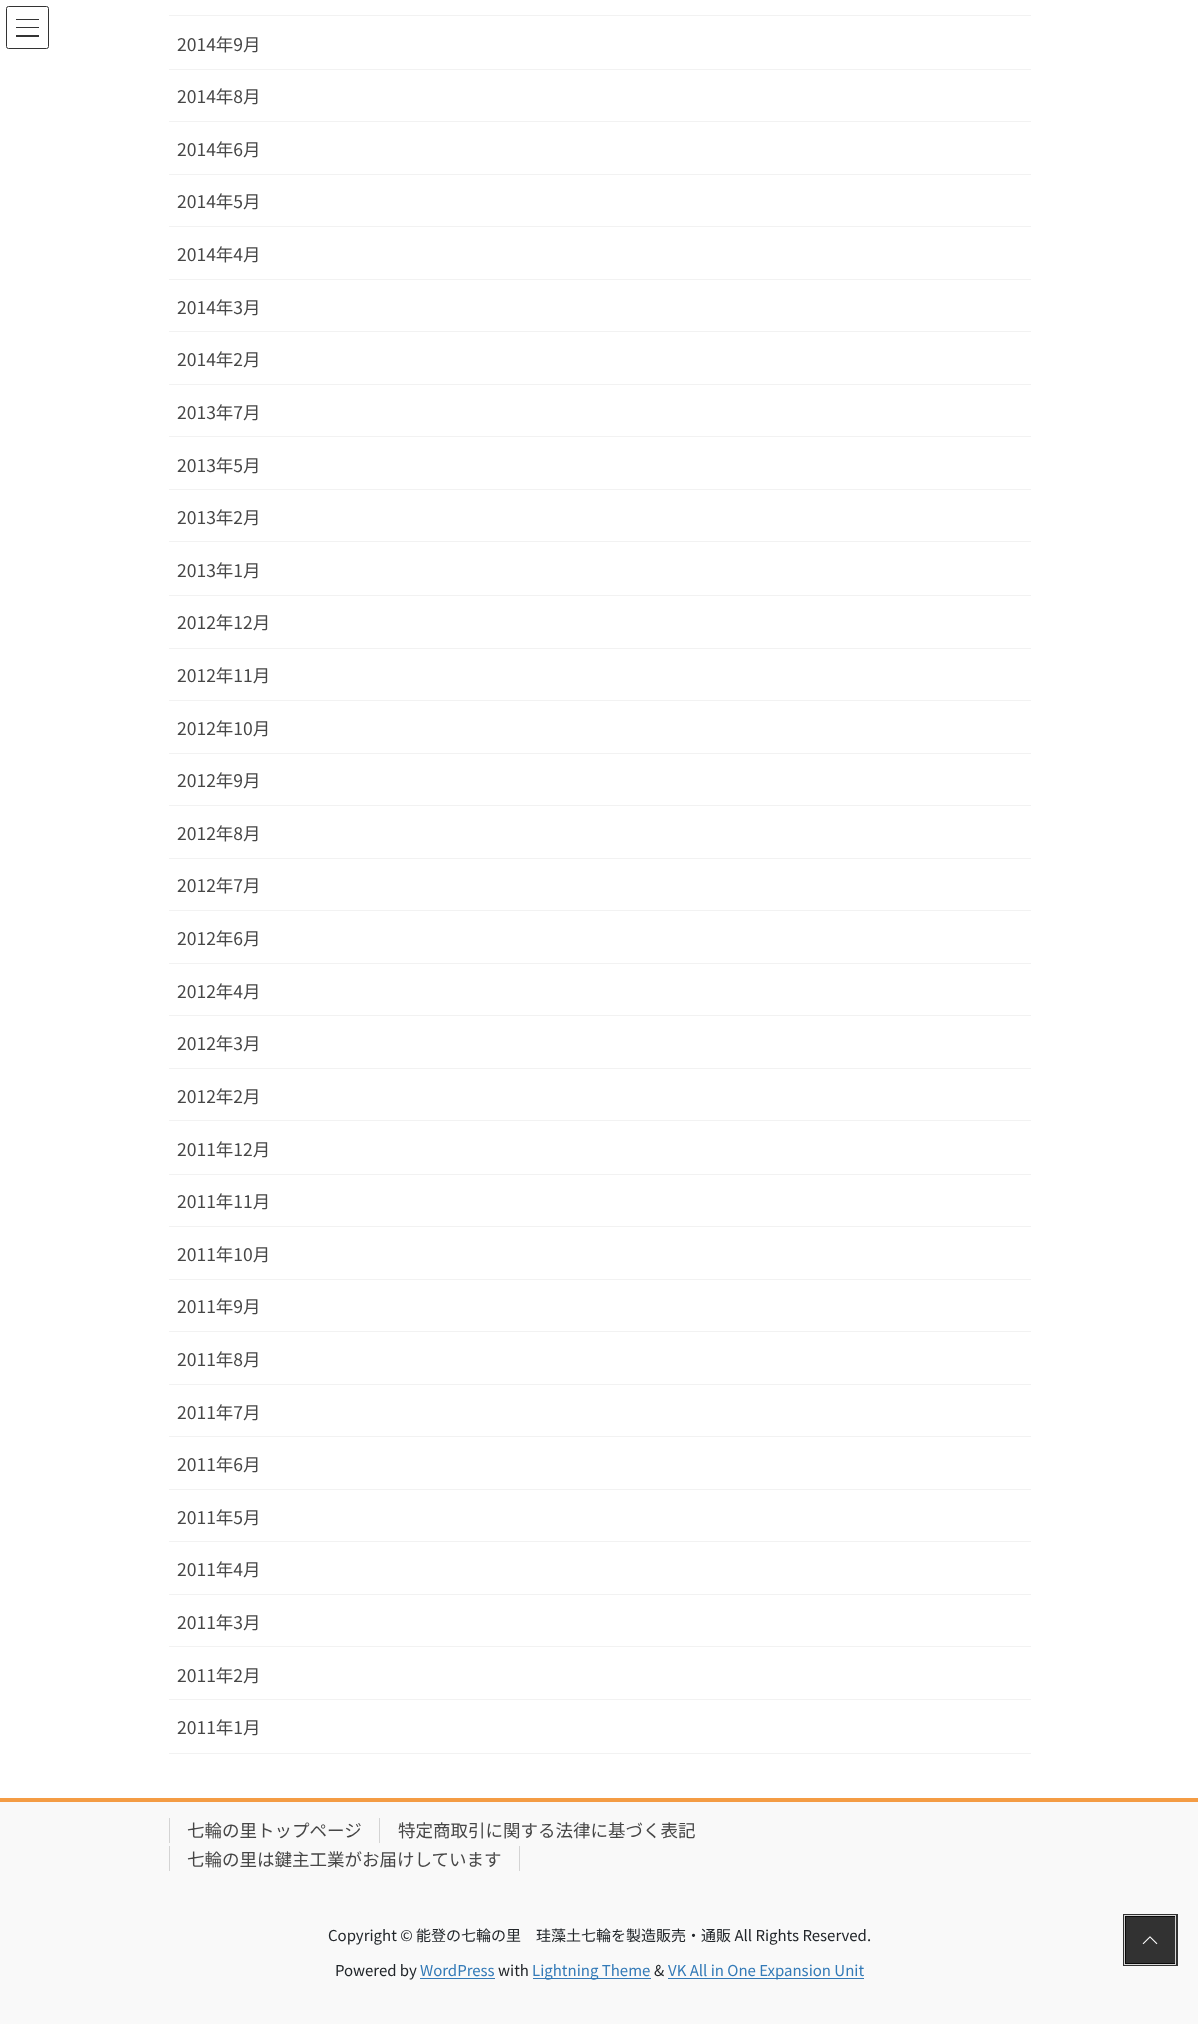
<?xml version="1.0" encoding="UTF-8"?>
<svg xmlns="http://www.w3.org/2000/svg" width="1198" height="2024">
    <rect width="100%" height="100%" fill="#FFFFFF"/>
    <rect x="16" y="19" width="23" height="1" fill="#333333"/>
    <rect x="16" y="27" width="23" height="1" fill="#333333"/>
    <rect x="16" y="35" width="23" height="2" fill="#333333"/>
    <rect x="6.5" y="6.5" width="42" height="42" rx="2" fill="none" stroke="#333333"/>
    <rect x="169" y="15" width="862" height="1" fill="#F2F2F2"/>
    <rect x="169" y="69" width="862" height="1" fill="#F2F2F2"/>
    <text x="177" y="51" font-family="Noto Sans JP" font-size="17.5" fill="#464646">2014年9月</text>
    <rect x="169" y="121" width="862" height="1" fill="#F2F2F2"/>
    <text x="177" y="103" font-family="Noto Sans JP" font-size="17.5" fill="#464646">2014年8月</text>
    <rect x="169" y="174" width="862" height="1" fill="#F2F2F2"/>
    <text x="177" y="156" font-family="Noto Sans JP" font-size="17.5" fill="#464646">2014年6月</text>
    <rect x="169" y="226" width="862" height="1" fill="#F2F2F2"/>
    <text x="177" y="208" font-family="Noto Sans JP" font-size="17.5" fill="#464646">2014年5月</text>
    <rect x="169" y="279" width="862" height="1" fill="#F2F2F2"/>
    <text x="177" y="261" font-family="Noto Sans JP" font-size="17.5" fill="#464646">2014年4月</text>
    <rect x="169" y="331" width="862" height="1" fill="#F2F2F2"/>
    <text x="177" y="314" font-family="Noto Sans JP" font-size="17.5" fill="#464646">2014年3月</text>
    <rect x="169" y="384" width="862" height="1" fill="#F2F2F2"/>
    <text x="177" y="366" font-family="Noto Sans JP" font-size="17.5" fill="#464646">2014年2月</text>
    <rect x="169" y="436" width="862" height="1" fill="#F2F2F2"/>
    <text x="177" y="419" font-family="Noto Sans JP" font-size="17.5" fill="#464646">2013年7月</text>
    <rect x="169" y="489" width="862" height="1" fill="#F2F2F2"/>
    <text x="177" y="472" font-family="Noto Sans JP" font-size="17.5" fill="#464646">2013年5月</text>
    <rect x="169" y="541" width="862" height="1" fill="#F2F2F2"/>
    <text x="177" y="524" font-family="Noto Sans JP" font-size="17.5" fill="#464646">2013年2月</text>
    <rect x="169" y="595" width="862" height="1" fill="#F2F2F2"/>
    <text x="177" y="577" font-family="Noto Sans JP" font-size="17.5" fill="#464646">2013年1月</text>
    <rect x="169" y="648" width="862" height="1" fill="#F2F2F2"/>
    <text x="177" y="629" font-family="Noto Sans JP" font-size="17.5" fill="#464646">2012年12月</text>
    <rect x="169" y="700" width="862" height="1" fill="#F2F2F2"/>
    <text x="177" y="682" font-family="Noto Sans JP" font-size="17.5" fill="#464646">2012年11月</text>
    <rect x="169" y="753" width="862" height="1" fill="#F2F2F2"/>
    <text x="177" y="735" font-family="Noto Sans JP" font-size="17.5" fill="#464646">2012年10月</text>
    <rect x="169" y="805" width="862" height="1" fill="#F2F2F2"/>
    <text x="177" y="787" font-family="Noto Sans JP" font-size="17.5" fill="#464646">2012年9月</text>
    <rect x="169" y="858" width="862" height="1" fill="#F2F2F2"/>
    <text x="177" y="840" font-family="Noto Sans JP" font-size="17.5" fill="#464646">2012年8月</text>
    <rect x="169" y="910" width="862" height="1" fill="#F2F2F2"/>
    <text x="177" y="892" font-family="Noto Sans JP" font-size="17.5" fill="#464646">2012年7月</text>
    <rect x="169" y="963" width="862" height="1" fill="#F2F2F2"/>
    <text x="177" y="945" font-family="Noto Sans JP" font-size="17.5" fill="#464646">2012年6月</text>
    <rect x="169" y="1015" width="862" height="1" fill="#F2F2F2"/>
    <text x="177" y="998" font-family="Noto Sans JP" font-size="17.5" fill="#464646">2012年4月</text>
    <rect x="169" y="1068" width="862" height="1" fill="#F2F2F2"/>
    <text x="177" y="1050" font-family="Noto Sans JP" font-size="17.5" fill="#464646">2012年3月</text>
    <rect x="169" y="1120" width="862" height="1" fill="#F2F2F2"/>
    <text x="177" y="1103" font-family="Noto Sans JP" font-size="17.5" fill="#464646">2012年2月</text>
    <rect x="169" y="1174" width="862" height="1" fill="#F2F2F2"/>
    <text x="177" y="1156" font-family="Noto Sans JP" font-size="17.5" fill="#464646">2011年12月</text>
    <rect x="169" y="1226" width="862" height="1" fill="#F2F2F2"/>
    <text x="177" y="1208" font-family="Noto Sans JP" font-size="17.5" fill="#464646">2011年11月</text>
    <rect x="169" y="1279" width="862" height="1" fill="#F2F2F2"/>
    <text x="177" y="1261" font-family="Noto Sans JP" font-size="17.5" fill="#464646">2011年10月</text>
    <rect x="169" y="1331" width="862" height="1" fill="#F2F2F2"/>
    <text x="177" y="1313" font-family="Noto Sans JP" font-size="17.5" fill="#464646">2011年9月</text>
    <rect x="169" y="1384" width="862" height="1" fill="#F2F2F2"/>
    <text x="177" y="1366" font-family="Noto Sans JP" font-size="17.5" fill="#464646">2011年8月</text>
    <rect x="169" y="1436" width="862" height="1" fill="#F2F2F2"/>
    <text x="177" y="1419" font-family="Noto Sans JP" font-size="17.5" fill="#464646">2011年7月</text>
    <rect x="169" y="1489" width="862" height="1" fill="#F2F2F2"/>
    <text x="177" y="1471" font-family="Noto Sans JP" font-size="17.5" fill="#464646">2011年6月</text>
    <rect x="169" y="1541" width="862" height="1" fill="#F2F2F2"/>
    <text x="177" y="1524" font-family="Noto Sans JP" font-size="17.5" fill="#464646">2011年5月</text>
    <rect x="169" y="1594" width="862" height="1" fill="#F2F2F2"/>
    <text x="177" y="1576" font-family="Noto Sans JP" font-size="17.5" fill="#464646">2011年4月</text>
    <rect x="169" y="1646" width="862" height="1" fill="#F2F2F2"/>
    <text x="177" y="1629" font-family="Noto Sans JP" font-size="17.5" fill="#464646">2011年3月</text>
    <rect x="169" y="1699" width="862" height="1" fill="#F2F2F2"/>
    <text x="177" y="1682" font-family="Noto Sans JP" font-size="17.5" fill="#464646">2011年2月</text>
    <rect x="169" y="1753" width="862" height="1" fill="#F2F2F2"/>
    <text x="177" y="1734" font-family="Noto Sans JP" font-size="17.5" fill="#464646">2011年1月</text>
    <rect x="0" y="1802" width="1198" height="222" fill="#F9F9F9"/>
    <rect x="0" y="1798" width="1198" height="4" fill="#F49C44"/>
    <text x="187" y="1837" font-family="Noto Sans JP" font-size="17.5" fill="#464646">七輪の里トップページ</text>
    <rect x="169" y="1818" width="1" height="25" fill="#D4D4D4"/>
    <text x="398" y="1837" font-family="Noto Sans JP" font-size="17.5" fill="#464646">特定商取引に関する法律に基づく表記</text>
    <rect x="379" y="1818" width="1" height="25" fill="#D4D4D4"/>
    <text x="187" y="1866" font-family="Noto Sans JP" font-size="17.5" fill="#464646">七輪の里は鍵主工業がお届けしています</text>
    <rect x="519" y="1846" width="1" height="25" fill="#D4D4D4"/>
    <rect x="169" y="1846" width="1" height="25" fill="#D4D4D4"/>
    <text x="328" y="1941" font-family="Noto Sans JP" font-size="15" fill="#212529">Copyright © 能登の七輪の里　珪藻土七輪を製造販売・通販 All Rights Reserved.</text>
    <text x="335" y="1976" font-family="Noto Sans JP" font-size="15" fill="#212529">Powered by</text>
    <text x="420" y="1976" font-family="Noto Sans JP" font-size="15" fill="#337AB7">WordPress</text>
    <rect x="420" y="1978" width="75" height="1" fill="#337AB7"/>
    <text x="498" y="1976" font-family="Noto Sans JP" font-size="15" fill="#212529">with</text>
    <rect x="533" y="1978" width="118" height="1" fill="#337AB7"/>
    <text x="532" y="1976" font-family="Noto Sans JP" font-size="15" fill="#337AB7">Lightning Theme</text>
    <text x="654" y="1976" font-family="Noto Sans JP" font-size="15" fill="#212529">&amp;</text>
    <rect x="668" y="1978" width="196" height="1" fill="#337AB7"/>
    <text x="668" y="1976" font-family="Noto Sans JP" font-size="15" fill="#337AB7">VK All in One Expansion Unit</text>
    <rect x="1124.5" y="1915.5" width="52" height="49" fill="none" stroke="#323232" stroke-width="3"/>
    <rect x="1124.5" y="1915.5" width="51" height="49" fill="none" stroke="#D6D6D6"/>
    <rect x="1125" y="1916" width="50" height="48" fill="#000000" fill-opacity="0.8"/>
    <image x="1142" y="1936" width="16" height="9" href="img_01.png"/>
</svg>
